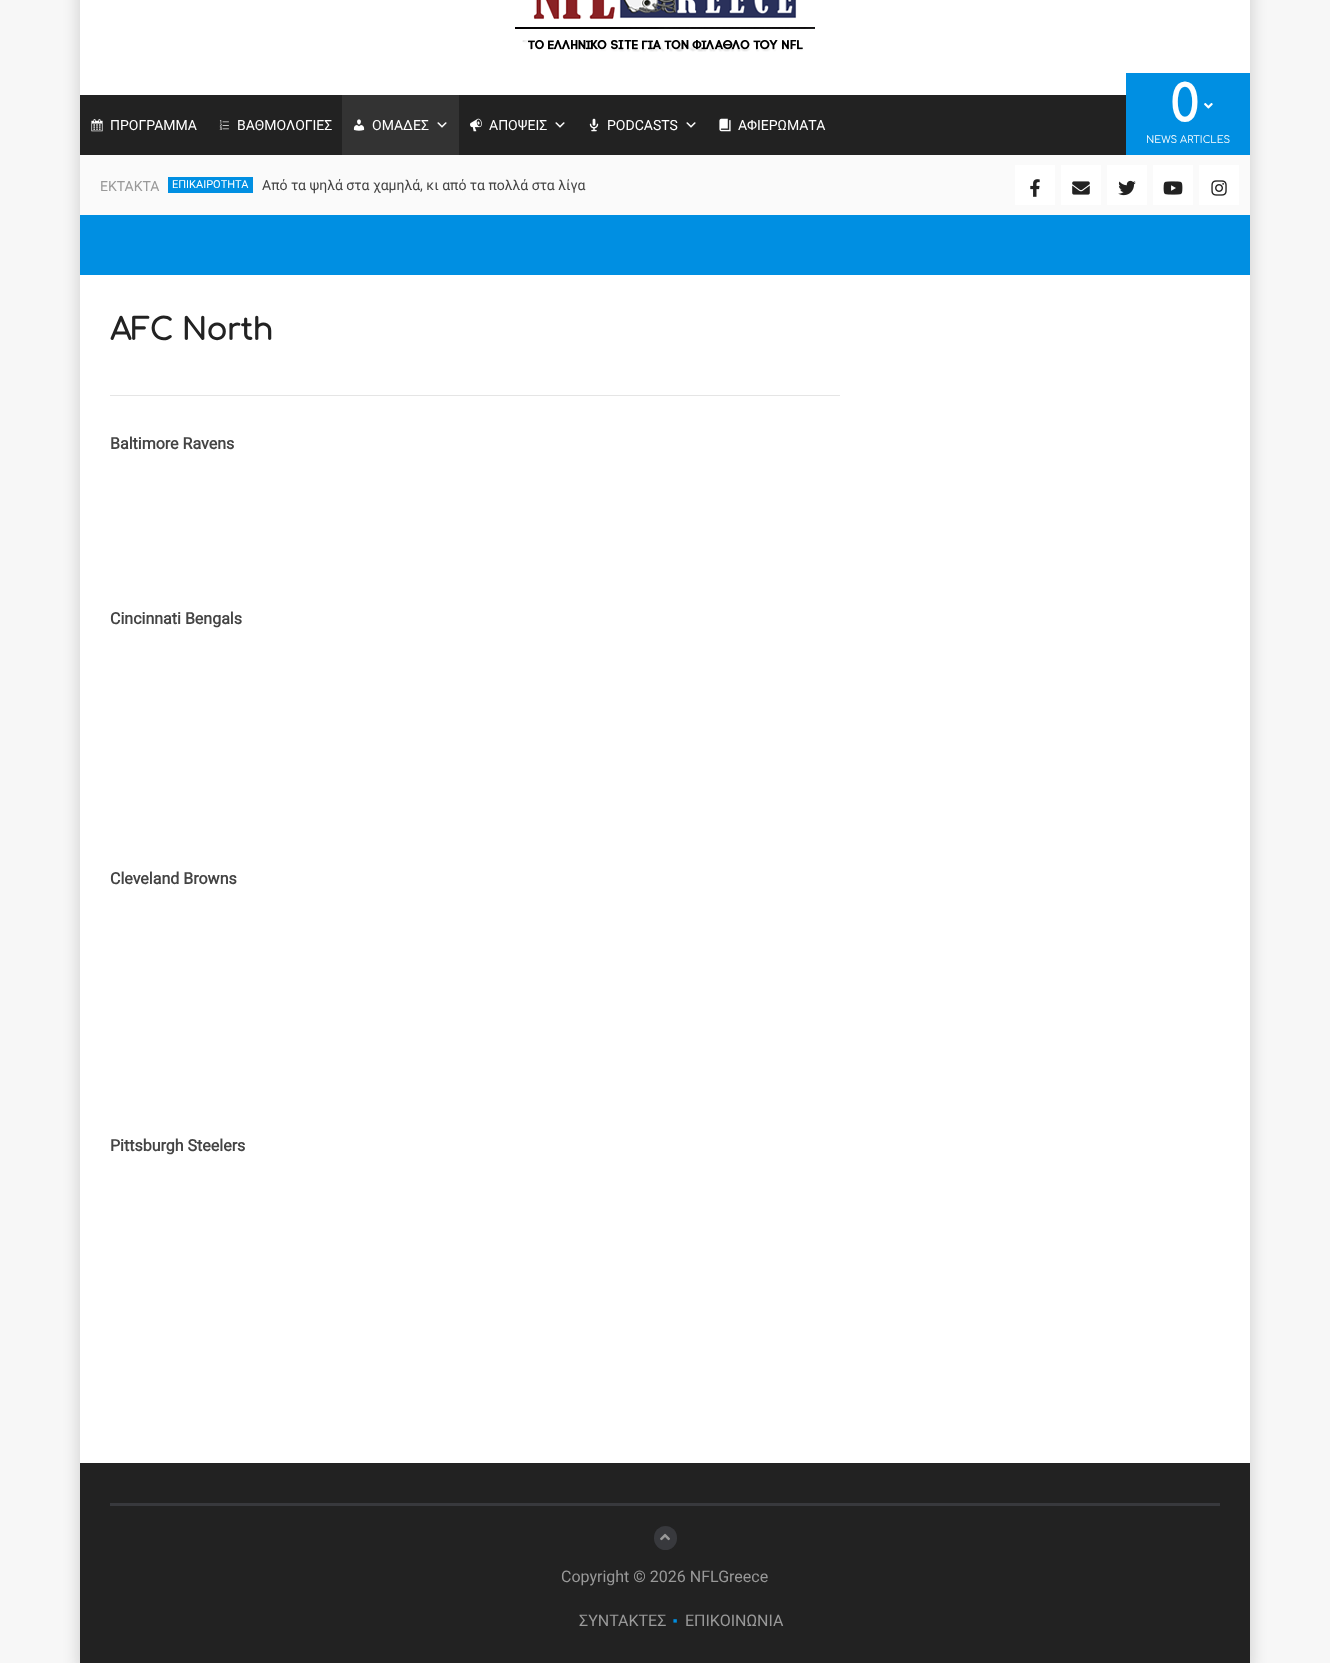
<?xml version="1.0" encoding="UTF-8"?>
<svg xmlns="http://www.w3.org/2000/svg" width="1330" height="1663">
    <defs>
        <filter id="blur1" x="-50%" y="-200%" width="200%" height="500%"><feGaussianBlur stdDeviation="7.5"/></filter>
    </defs>
    <rect width="100%" height="100%" fill="#F7F7F7"/>
    <rect x="78" y="-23" width="1174" height="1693" fill="#000000" fill-opacity="0.15" filter="url(#blur1)"/>
    <rect x="80" y="0" width="1170" height="1463" fill="#FFFFFF"/>
    <image x="515" y="0" width="300" height="52" href="img_01.png"/>
    <rect x="80" y="95" width="1046" height="60" fill="#222222"/>
    <image x="91" y="119" width="12" height="13" href="img_02.png"/>
    <text x="110" y="130" font-family="Roboto" font-size="14" fill="#FFFFFF">ΠΡΟΓΡΑΜΜΑ</text>
    <image x="219" y="120" width="10" height="10" href="img_03.png"/>
    <text x="237" y="130" font-family="Roboto" font-size="14" fill="#FFFFFF">ΒΑΘΜΟΛΟΓΙΕΣ</text>
    <rect x="342" y="95" width="117" height="60" fill="#333333"/>
    <image x="353" y="119" width="12" height="12" href="img_04.png"/>
    <text x="372" y="130" font-family="Roboto" font-size="14" fill="#FFFFFF">ΟΜΑΔΕΣ</text>
    <image x="437" y="122" width="10" height="6" href="img_05.png"/>
    <image x="470" y="118" width="12" height="14" href="img_06.png"/>
    <text x="489" y="130" font-family="Roboto" font-size="14" fill="#FFFFFF">ΑΠΟΨΕΙΣ</text>
    <image x="555" y="122" width="10" height="6" href="img_07.png"/>
    <image x="589" y="118" width="10" height="14" href="img_08.png"/>
    <text x="607" y="130" font-family="Roboto" font-size="14" fill="#FFFFFF">PODCASTS</text>
    <image x="686" y="122" width="10" height="6" href="img_07.png"/>
    <image x="719" y="118" width="12" height="14" href="img_09.png"/>
    <text x="738" y="130" font-family="Roboto" font-size="14" fill="#FFFFFF">ΑΦΙΕΡΩΜΑΤΑ</text>
    <rect x="1126" y="73" width="124" height="82" fill="#008FE2"/>
    <text x="1170" y="122" font-family="Comfortaa" font-size="50" font-weight="700" fill="#FFFFFF">0</text>
    <image x="1204" y="103" width="9" height="6" href="img_10.png"/>
    <text x="1146" y="143" font-family="Comfortaa" font-size="10" fill="#FFFFFF">NEWS ARTICLES</text>
    <rect x="80" y="155" width="1170" height="60" fill="#FAFAFA"/>
    <text x="100" y="191" font-family="Roboto" font-size="14" fill="#999999">ΕΚΤΑΚΤΑ</text>
    <rect x="168" y="177" width="85" height="16" fill="#008FE2"/>
    <text x="172" y="188" font-family="Roboto" font-size="11" fill="#FFFFFF">EΠΙΚΑΙΡΟΤΗΤΑ</text>
    <text x="262" y="190" font-family="Roboto" font-size="14" fill="#444444">Από τα ψηλά στα χαμηλά, κι από τα πολλά στα λίγα</text>
    <rect x="1015" y="165" width="40" height="40" fill="#FFFFFF"/>
    <image x="1030" y="179" width="10" height="18" href="img_11.png"/>
    <rect x="1061" y="165" width="40" height="40" fill="#FFFFFF"/>
    <image x="1072" y="181" width="18" height="14" href="img_12.png"/>
    <rect x="1107" y="165" width="40" height="40" fill="#FFFFFF"/>
    <image x="1118" y="180" width="18" height="16" href="img_13.png"/>
    <rect x="1153" y="165" width="40" height="40" fill="#FFFFFF"/>
    <image x="1163" y="181" width="20" height="14" href="img_14.png"/>
    <rect x="1199" y="165" width="40" height="40" fill="#FFFFFF"/>
    <image x="1211" y="180" width="16" height="16" href="img_15.png"/>
    <rect x="80" y="215" width="1170" height="60" fill="#008FE2"/>
    <rect x="110" y="395" width="730" height="1" fill="#E5E5E5"/>
    <text x="110" y="340" font-family="Comfortaa" font-size="30" font-weight="700" fill="#222222">AFC North</text>
    <text x="110" y="449" font-family="Roboto" font-size="16" font-weight="700" fill="#444444">Baltimore Ravens</text>
    <text x="110" y="624" font-family="Roboto" font-size="16" font-weight="700" fill="#444444">Cincinnati Bengals</text>
    <text x="110" y="884" font-family="Roboto" font-size="16" font-weight="700" fill="#444444">Cleveland Browns</text>
    <text x="110" y="1151" font-family="Roboto" font-size="16" font-weight="700" fill="#444444">Pittsburgh Steelers</text>
    <rect x="80" y="1463" width="1170" height="200" fill="#222222"/>
    <rect x="110" y="1503" width="1110" height="3" fill="#38393D"/>
    <rect x="654" y="1526" width="23" height="24" rx="11.5" fill="#38393D"/>
    <image x="660" y="1533" width="10" height="8" href="img_16.png"/>
    <text x="561" y="1582" font-family="Roboto" font-size="16" fill="#999999">Copyright © 2026 NFLGreece</text>
    <text x="579" y="1626" font-family="Roboto" font-size="16" fill="#999999">ΣΥΝΤΑΚΤΕΣ</text>
    <text x="673" y="1623" font-family="Liberation Serif" font-size="7" fill="#008FE2">■</text>
    <text x="685" y="1626" font-family="Roboto" font-size="16" fill="#999999">ΕΠΙΚΟΙΝΩΝΙΑ</text>
</svg>
